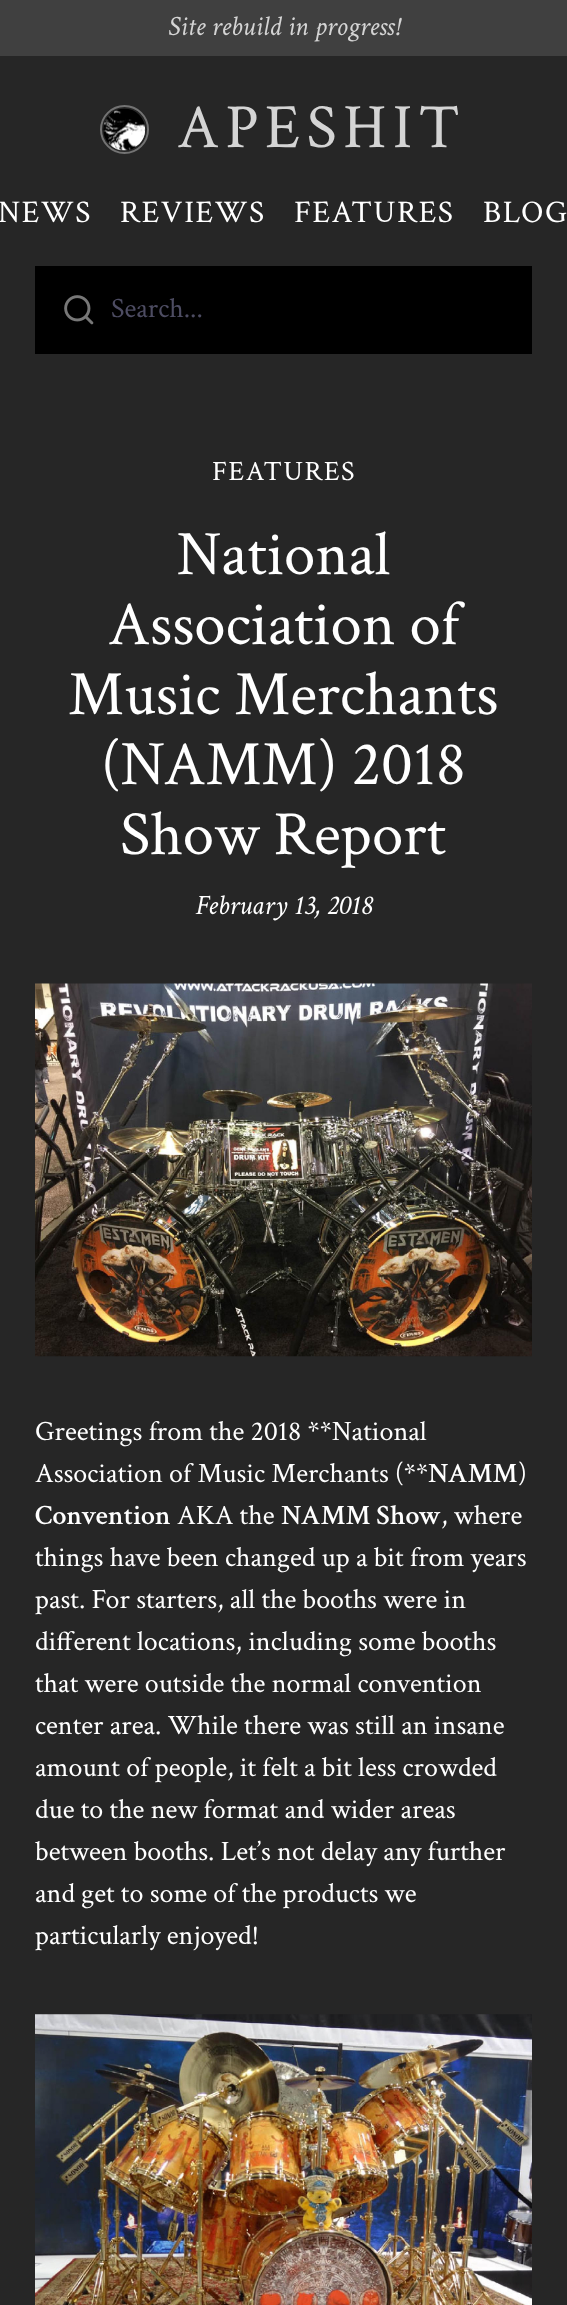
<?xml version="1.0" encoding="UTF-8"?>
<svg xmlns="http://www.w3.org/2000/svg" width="567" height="2305">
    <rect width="100%" height="100%" fill="#262626"/>
    <rect x="0" y="0" width="567" height="56" fill="#404040"/>
    <text x="168" y="35" font-family="Crimson Text" font-size="28" font-style="italic" fill="#D4D4D4">Site rebuild in progress!</text>
    <circle cx="124.5" cy="129.5" r="23.5" fill="none" stroke="#737373" stroke-width="2"/>
    <image x="103" y="108" width="43" height="43" href="img_01.png"/>
    <text x="177" y="147" font-family="Crimson Text" font-size="63" letter-spacing="6.25" fill="#D4D4D4">APESHIT</text>
    <text x="-2" y="222" font-family="Crimson Text" font-size="31.5" letter-spacing="1.5" fill="#FFFFFF">NEWS</text>
    <text x="120" y="222" font-family="Crimson Text" font-size="31.5" letter-spacing="1.5" fill="#FFFFFF">REVIEWS</text>
    <text x="294" y="222" font-family="Crimson Text" font-size="31.5" letter-spacing="1.5" fill="#FFFFFF">FEATURES</text>
    <text x="483" y="222" font-family="Crimson Text" font-size="31.5" letter-spacing="1.5" fill="#FFFFFF">BLOG</text>
    <rect x="35" y="266" width="497" height="88" fill="#000000"/>
    <image x="64" y="295" width="30" height="30" href="img_02.png"/>
    <text x="111" y="317" font-family="Crimson Text" font-size="28" fill="#4D4C62">Search...</text>
    <text x="212" y="480" font-family="Crimson Text" font-size="28" letter-spacing="1.5" fill="#FFFFFF">FEATURES</text>
    <text x="177" y="574" font-family="Crimson Text" font-size="63" fill="#FFFFFF">National</text>
    <text x="108" y="644" font-family="Crimson Text" font-size="63" fill="#FFFFFF">Association of</text>
    <text x="68" y="714" font-family="Crimson Text" font-size="63" fill="#FFFFFF">Music Merchants</text>
    <text x="101" y="784" font-family="Crimson Text" font-size="63" fill="#FFFFFF">(NAMM) 2018</text>
    <text x="120" y="854" font-family="Crimson Text" font-size="63" fill="#FFFFFF">Show Report</text>
    <text x="196" y="914" font-family="Crimson Text" font-size="28" font-style="italic" fill="#FFFFFF">February 13, 2018</text>
    <image x="35" y="983" width="497" height="374" href="img_03.png"/>
    <text font-family="Crimson Text" font-size="28" fill="#FFFFFF">
        <tspan x="35" y="1440">Greetings from the 2018 **National</tspan>
        <tspan x="35" y="1482">Association of Music Merchants (**</tspan>
    </text>
    <text x="428" y="1482" font-family="Crimson Text" font-size="28" font-weight="600" fill="#FFFFFF">NAMM</text>
    <text x="518" y="1482" font-family="Crimson Text" font-size="28" fill="#FFFFFF">)</text>
    <text x="35" y="1524" font-family="Crimson Text" font-size="28" font-weight="600" fill="#FFFFFF">Convention</text>
    <text x="177" y="1524" font-family="Crimson Text" font-size="28" fill="#FFFFFF">AKA the</text>
    <text x="281" y="1524" font-family="Crimson Text" font-size="28" font-weight="600" fill="#FFFFFF">NAMM Show</text>
    <text x="441" y="1524" font-family="Crimson Text" font-size="28" fill="#FFFFFF">, where</text>
    <text font-family="Crimson Text" font-size="28" fill="#FFFFFF">
        <tspan x="35" y="1566">things have been changed up a bit from years</tspan>
        <tspan x="35" y="1608">past. For starters, all the booths were in</tspan>
        <tspan x="35" y="1650">different locations, including some booths</tspan>
        <tspan x="35" y="1692">that were outside the normal convention</tspan>
        <tspan x="35" y="1734">center area. While there was still an insane</tspan>
        <tspan x="35" y="1776">amount of people, it felt a bit less crowded</tspan>
        <tspan x="35" y="1818">due to the new format and wider areas</tspan>
        <tspan x="35" y="1860">between booths. Let’s not delay any further</tspan>
        <tspan x="35" y="1902">and get to some of the products we</tspan>
        <tspan x="35" y="1944">particularly enjoyed!</tspan>
    </text>
    <image x="35" y="2014" width="497" height="291" href="img_04.png"/>
</svg>
